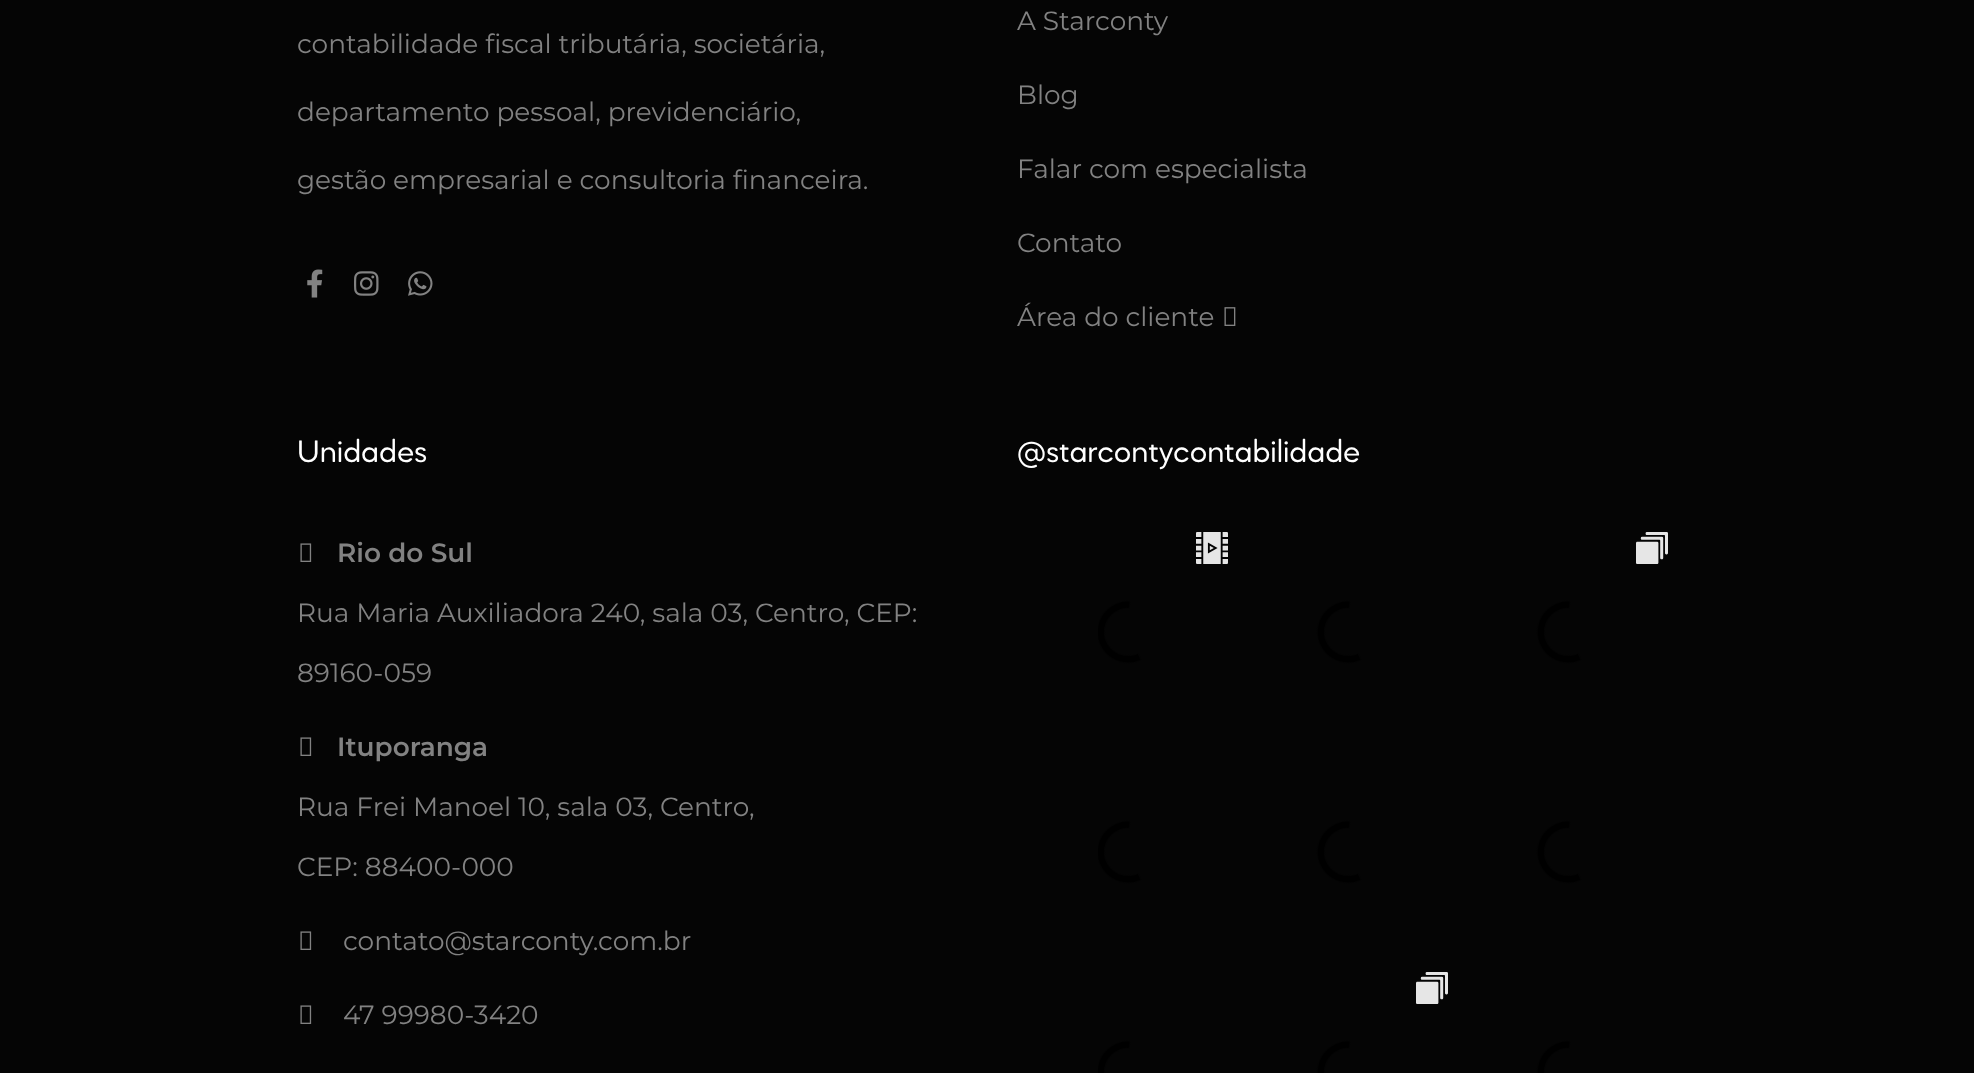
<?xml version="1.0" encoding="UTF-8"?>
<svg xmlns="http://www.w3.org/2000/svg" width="1974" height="1073">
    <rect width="100%" height="100%" fill="#050505"/>
    <text x="297" y="53" font-family="Montserrat" font-size="26.4" fill="#828282">contabilidade fiscal tributária, societária,</text>
    <text x="297" y="121" font-family="Montserrat" font-size="26.4" fill="#828282">departamento pessoal, previdenciário,</text>
    <text x="297" y="189" font-family="Montserrat" font-size="26.4" fill="#828282">gestão empresarial e consultoria financeira.</text>
    <image x="307" y="269" width="16" height="29" href="img_01.png"/>
    <image x="354" y="271" width="25" height="25" href="img_02.png"/>
    <image x="408" y="271" width="25" height="25" href="img_03.png"/>
    <text x="1017" y="30" font-family="Montserrat" font-size="26.4" fill="#828282">A Starconty</text>
    <text x="1017" y="104" font-family="Montserrat" font-size="26.4" fill="#828282">Blog</text>
    <text x="1017" y="178" font-family="Montserrat" font-size="26.4" fill="#828282">Falar com especialista</text>
    <text x="1017" y="252" font-family="Montserrat" font-size="26.4" fill="#828282">Contato</text>
    <text x="1017" y="326" font-family="Montserrat" font-size="26.4" fill="#828282">Área do cliente</text>
    <image x="1224" y="307" width="12" height="19" href="img_04.png"/>
    <text x="297" y="462" font-family="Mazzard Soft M" font-size="32" fill="#FFFFFF">Unidades</text>
    <image x="300" y="543" width="12" height="19" href="img_05.png"/>
    <text x="337" y="562" font-family="Montserrat" font-size="26.4" font-weight="600" fill="#828282">Rio do Sul</text>
    <text x="297" y="622" font-family="Montserrat" font-size="26.4" fill="#828282">Rua Maria Auxiliadora 240, sala 03, Centro, CEP:</text>
    <text x="297" y="682" font-family="Montserrat" font-size="26.4" fill="#828282">89160-059</text>
    <image x="300" y="737" width="12" height="19" href="img_05.png"/>
    <text x="337" y="756" font-family="Montserrat" font-size="26.4" font-weight="600" fill="#828282">Ituporanga</text>
    <text x="297" y="816" font-family="Montserrat" font-size="26.4" fill="#828282">Rua Frei Manoel 10, sala 03, Centro,</text>
    <text x="297" y="876" font-family="Montserrat" font-size="26.4" fill="#828282">CEP: 88400-000</text>
    <image x="300" y="931" width="12" height="19" href="img_05.png"/>
    <text x="343" y="950" font-family="Montserrat" font-size="26.4" fill="#828282">contato@starconty.com.br</text>
    <image x="300" y="1005" width="12" height="19" href="img_05.png"/>
    <text x="343" y="1024" font-family="Montserrat" font-size="26.4" fill="#828282">47 99980-3420</text>
    <text x="1017" y="462" font-family="Mazzard Soft M" font-size="32" fill="#FFFFFF">@starcontycontabilidade</text>
    <image x="1098" y="532" width="570" height="541" href="img_06.png"/>
</svg>
